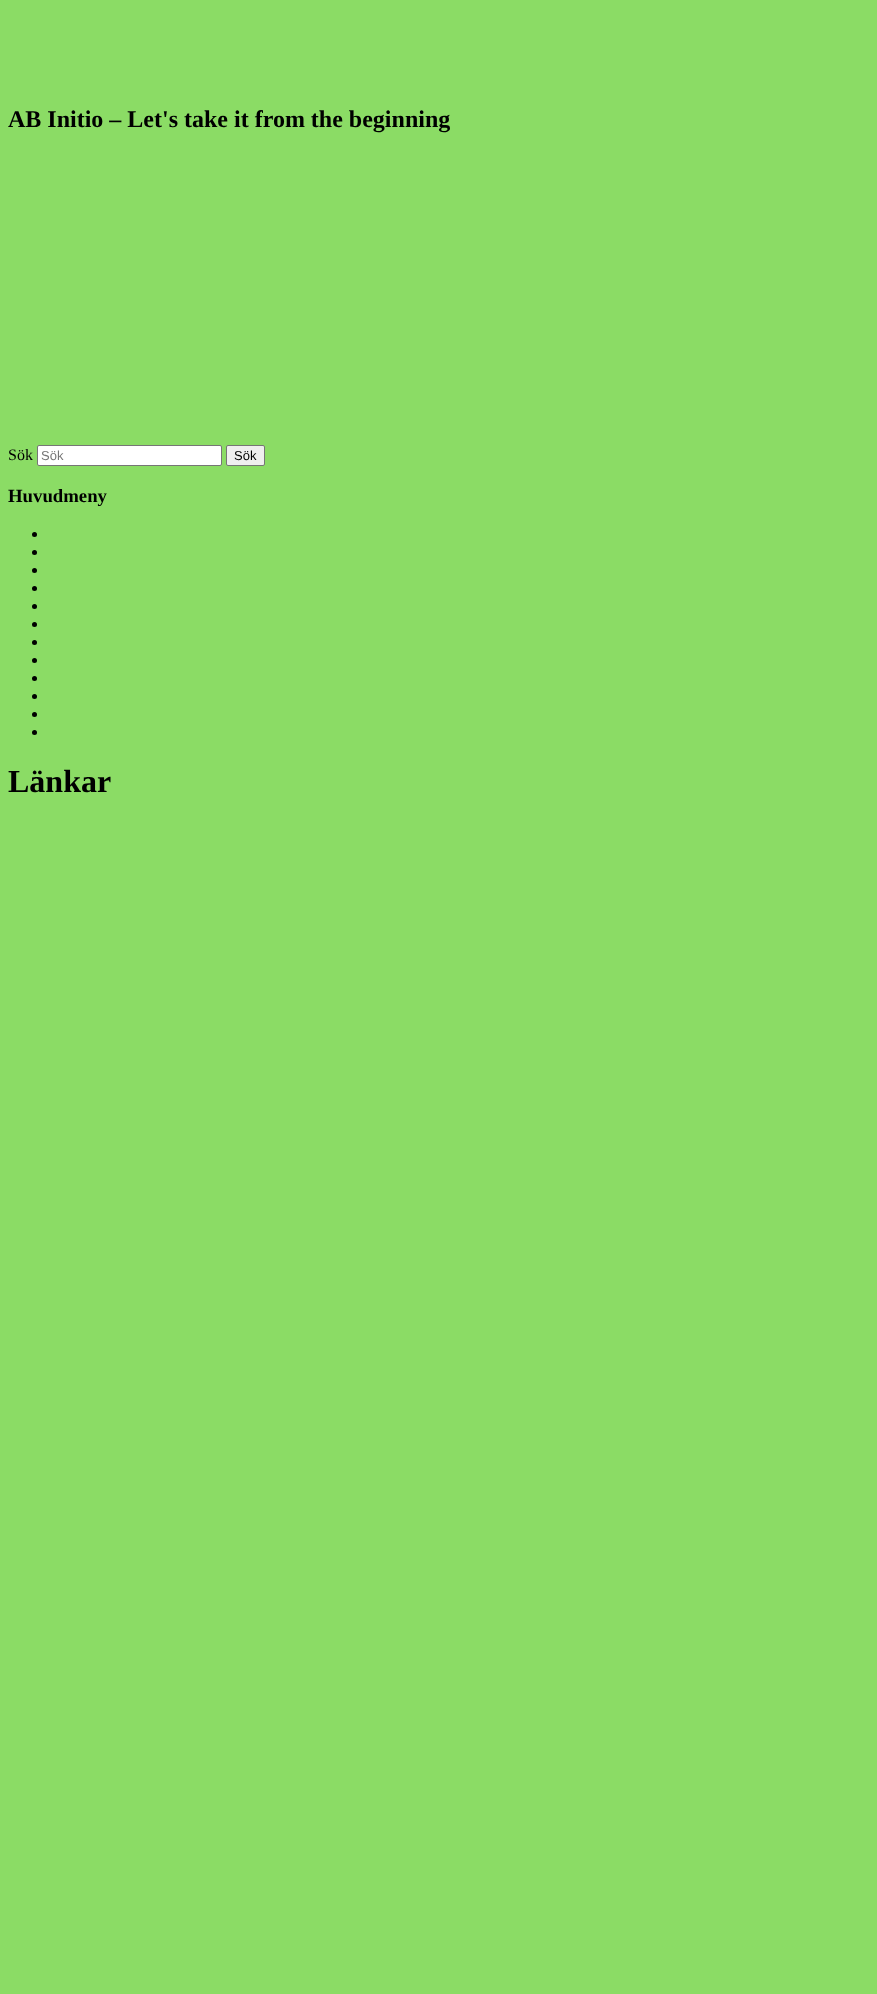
<?xml version="1.0" encoding="UTF-8"?>
<svg xmlns="http://www.w3.org/2000/svg" width="877" height="1994">
    <rect width="100%" height="100%" fill="#8BDC65"/>
    <text x="8" y="127" font-family="Liberation Serif" font-size="24" font-weight="700" fill="#000000">AB Initio – Let's take it from the beginning</text>
    <text x="8" y="460" font-family="Liberation Serif" font-size="16" fill="#000000">Sök</text>
    <rect x="37.5" y="445.5" width="184" height="20" rx="1.5" fill="#FFFFFF" stroke="#767676"/>
    <text x="41" y="460" font-family="Liberation Sans" font-size="13" fill="#757575">Sök</text>
    <rect x="226.5" y="445.5" width="38" height="20" rx="1.5" fill="#EFEFEF" stroke="#767676"/>
    <text x="234" y="460" font-family="Liberation Sans" font-size="13" fill="#000000">Sök</text>
    <text x="8" y="502" font-family="Liberation Serif" font-size="18.75" font-weight="700" fill="#000000">Huvudmeny</text>
    <circle cx="34.5" cy="534.5" r="2.5" fill="#000000"/>
    <circle cx="34.5" cy="552.5" r="2.5" fill="#000000"/>
    <circle cx="34.5" cy="570.5" r="2.5" fill="#000000"/>
    <circle cx="34.5" cy="588.5" r="2.5" fill="#000000"/>
    <circle cx="34.5" cy="606.5" r="2.5" fill="#000000"/>
    <circle cx="34.5" cy="624.5" r="2.5" fill="#000000"/>
    <circle cx="34.5" cy="642.5" r="2.5" fill="#000000"/>
    <circle cx="34.5" cy="660.5" r="2.5" fill="#000000"/>
    <circle cx="34.5" cy="678.5" r="2.5" fill="#000000"/>
    <circle cx="34.5" cy="696.5" r="2.5" fill="#000000"/>
    <circle cx="34.5" cy="714.5" r="2.5" fill="#000000"/>
    <circle cx="34.5" cy="732.5" r="2.5" fill="#000000"/>
    <text x="8" y="792" font-family="Liberation Serif" font-size="32" font-weight="700" fill="#000000">Länkar</text>
</svg>
